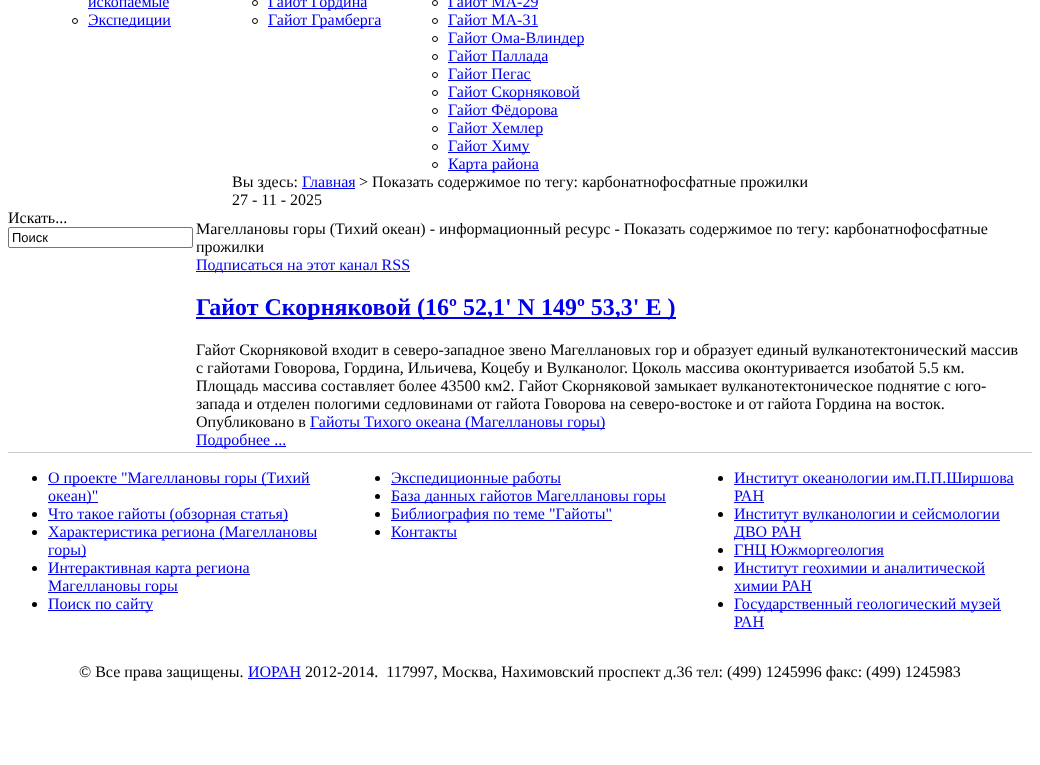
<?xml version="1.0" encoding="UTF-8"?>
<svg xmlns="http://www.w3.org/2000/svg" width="1040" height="765">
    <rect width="100%" height="100%" fill="#FFFFFF"/>
    <text x="88" y="7" font-family="Liberation Serif" font-size="16" fill="#0000EE">ископаемые</text>
    <rect x="88" y="8" width="81" height="1" fill="#0000EE"/>
    <circle cx="75" cy="21" r="2.5" fill="none" stroke="#000000"/>
    <rect x="88" y="26" width="83" height="1" fill="#0000EE"/>
    <text x="88" y="25" font-family="Liberation Serif" font-size="16" fill="#0000EE">Экспедиции</text>
    <circle cx="255" cy="3" r="2.5" fill="none" stroke="#000000"/>
    <rect x="268" y="8" width="99" height="1" fill="#0000EE"/>
    <text x="268" y="7" font-family="Liberation Serif" font-size="16" fill="#0000EE">Гайот Гордина</text>
    <circle cx="255" cy="21" r="2.5" fill="none" stroke="#000000"/>
    <rect x="268" y="26" width="113" height="1" fill="#0000EE"/>
    <text x="268" y="25" font-family="Liberation Serif" font-size="16" fill="#0000EE">Гайот Грамберга</text>
    <circle cx="435" cy="3" r="2.5" fill="none" stroke="#000000"/>
    <text x="448" y="7" font-family="Liberation Serif" font-size="16" fill="#0000EE">Гайот MA-29</text>
    <rect x="448" y="8" width="90" height="1" fill="#0000EE"/>
    <circle cx="435" cy="21" r="2.5" fill="none" stroke="#000000"/>
    <text x="448" y="25" font-family="Liberation Serif" font-size="16" fill="#0000EE">Гайот MA-31</text>
    <rect x="448" y="26" width="90" height="1" fill="#0000EE"/>
    <circle cx="435" cy="39" r="2.5" fill="none" stroke="#000000"/>
    <rect x="448" y="44" width="136" height="1" fill="#0000EE"/>
    <text x="448" y="43" font-family="Liberation Serif" font-size="16" fill="#0000EE">Гайот Oмa-Влиндер</text>
    <circle cx="435" cy="57" r="2.5" fill="none" stroke="#000000"/>
    <rect x="448" y="62" width="100" height="1" fill="#0000EE"/>
    <text x="448" y="61" font-family="Liberation Serif" font-size="16" fill="#0000EE">Гайот Паллада</text>
    <circle cx="435" cy="75" r="2.5" fill="none" stroke="#000000"/>
    <text x="448" y="79" font-family="Liberation Serif" font-size="16" fill="#0000EE">Гайот Пегас</text>
    <rect x="448" y="80" width="83" height="1" fill="#0000EE"/>
    <circle cx="435" cy="93" r="2.5" fill="none" stroke="#000000"/>
    <rect x="448" y="98" width="132" height="1" fill="#0000EE"/>
    <text x="448" y="97" font-family="Liberation Serif" font-size="16" fill="#0000EE">Гайот Скорняковой</text>
    <circle cx="435" cy="111" r="2.5" fill="none" stroke="#000000"/>
    <rect x="448" y="116" width="110" height="1" fill="#0000EE"/>
    <text x="448" y="115" font-family="Liberation Serif" font-size="16" fill="#0000EE">Гайот Фёдорова</text>
    <circle cx="435" cy="129" r="2.5" fill="none" stroke="#000000"/>
    <rect x="448" y="134" width="95" height="1" fill="#0000EE"/>
    <text x="448" y="133" font-family="Liberation Serif" font-size="16" fill="#0000EE">Гайот Хемлер</text>
    <circle cx="435" cy="147" r="2.5" fill="none" stroke="#000000"/>
    <rect x="448" y="152" width="82" height="1" fill="#0000EE"/>
    <text x="448" y="151" font-family="Liberation Serif" font-size="16" fill="#0000EE">Гайот Химу</text>
    <circle cx="435" cy="165" r="2.5" fill="none" stroke="#000000"/>
    <rect x="448" y="170" width="91" height="1" fill="#0000EE"/>
    <text x="448" y="169" font-family="Liberation Serif" font-size="16" fill="#0000EE">Карта района</text>
    <text x="232" y="187" font-family="Liberation Serif" font-size="16" fill="#000000">Вы здесь:</text>
    <text x="302" y="187" font-family="Liberation Serif" font-size="16" fill="#0000EE">Главная</text>
    <rect x="302" y="188" width="53" height="1" fill="#0000EE"/>
    <text x="359" y="187" font-family="Liberation Serif" font-size="16" fill="#000000">&gt; Показать содержимое по тегу: карбонатнофосфатные прожилки</text>
    <text x="232" y="205" font-family="Liberation Serif" font-size="16" fill="#000000">27 - 11 - 2025</text>
    <text x="8" y="223" font-family="Liberation Serif" font-size="16" fill="#000000">Искать...</text>
    <rect x="8.5" y="227.5" width="184" height="20" rx="1.5" fill="none" stroke="#767676"/>
    <text x="12" y="242" font-family="Liberation Sans" font-size="13" fill="#000000">Поиск</text>
    <text font-family="Liberation Serif" font-size="16" fill="#000000">
        <tspan x="196" y="234">Магеллановы горы (Тихий океан) - информационный ресурс - Показать содержимое по тегу: карбонатнофосфатные</tspan>
        <tspan x="196" y="252">прожилки</tspan>
    </text>
    <rect x="196" y="271" width="214" height="1" fill="#0000EE"/>
    <text x="196" y="270" font-family="Liberation Serif" font-size="16" fill="#0000EE">Подписаться на этот канал RSS</text>
    <rect x="196" y="317" width="480" height="2" fill="#0000EE"/>
    <text x="196" y="315" font-family="Liberation Serif" font-size="24" font-weight="700" fill="#0000EE">Гайот Скорняковой (16º 52,1' N 149º 53,3' E )</text>
    <text font-family="Liberation Serif" font-size="16" fill="#000000">
        <tspan x="196" y="355">Гайот Скорняковой входит в северо-западное звено Магеллановых гор и образует единый вулканотектонический массив</tspan>
        <tspan x="196" y="373">с гайотами Говорова, Гордина, Ильичева, Коцебу и Вулканолог. Цоколь массива оконтуривается изобатой 5.5 км.</tspan>
        <tspan x="196" y="391">Площадь массива составляет более 43500 км2. Гайот Скорняковой замыкает вулканотектоническое поднятие c юго-</tspan>
        <tspan x="196" y="409">запада и отделен пологими седловинами от гайота Говорова на северо-востоке и от гайота Гордина на восток.</tspan>
        <tspan x="196" y="427">Опубликовано в</tspan>
    </text>
    <rect x="310" y="428" width="295" height="1" fill="#0000EE"/>
    <text x="310" y="427" font-family="Liberation Serif" font-size="16" fill="#0000EE">Гайоты Тихого океана (Магеллановы горы)</text>
    <rect x="196" y="446" width="90" height="1" fill="#0000EE"/>
    <text x="196" y="445" font-family="Liberation Serif" font-size="16" fill="#0000EE">Подробнее ...</text>
    <rect x="8" y="452" width="1024" height="1" fill="#CCCCCC"/>
    <circle cx="34.5" cy="478.5" r="2.5" fill="#000000"/>
    <rect x="48" y="484" width="262" height="1" fill="#0000EE"/>
    <text x="48" y="483" font-family="Liberation Serif" font-size="16" fill="#0000EE">О проекте "Магеллановы горы (Тихий</text>
    <rect x="48" y="502" width="50" height="1" fill="#0000EE"/>
    <text x="48" y="501" font-family="Liberation Serif" font-size="16" fill="#0000EE">океан)"</text>
    <circle cx="34.5" cy="514.5" r="2.5" fill="#000000"/>
    <rect x="48" y="520" width="240" height="1" fill="#0000EE"/>
    <text x="48" y="519" font-family="Liberation Serif" font-size="16" fill="#0000EE">Что такое гайоты (обзорная статья)</text>
    <circle cx="34.5" cy="532.5" r="2.5" fill="#000000"/>
    <rect x="48" y="538" width="269" height="1" fill="#0000EE"/>
    <text x="48" y="537" font-family="Liberation Serif" font-size="16" fill="#0000EE">Характеристика региона (Магеллановы</text>
    <rect x="48" y="556" width="38" height="1" fill="#0000EE"/>
    <text x="48" y="555" font-family="Liberation Serif" font-size="16" fill="#0000EE">горы)</text>
    <circle cx="34.5" cy="568.5" r="2.5" fill="#000000"/>
    <rect x="48" y="574" width="202" height="1" fill="#0000EE"/>
    <text x="48" y="573" font-family="Liberation Serif" font-size="16" fill="#0000EE">Интерактивная карта региона</text>
    <rect x="48" y="592" width="130" height="1" fill="#0000EE"/>
    <text x="48" y="591" font-family="Liberation Serif" font-size="16" fill="#0000EE">Магеллановы горы</text>
    <circle cx="34.5" cy="604.5" r="2.5" fill="#000000"/>
    <rect x="48" y="610" width="105" height="1" fill="#0000EE"/>
    <text x="48" y="609" font-family="Liberation Serif" font-size="16" fill="#0000EE">Поиск по сайту</text>
    <circle cx="377.5" cy="478.5" r="2.5" fill="#000000"/>
    <rect x="391" y="484" width="170" height="1" fill="#0000EE"/>
    <text x="391" y="483" font-family="Liberation Serif" font-size="16" fill="#0000EE">Экспедиционные работы</text>
    <circle cx="377.5" cy="496.5" r="2.5" fill="#000000"/>
    <rect x="391" y="502" width="275" height="1" fill="#0000EE"/>
    <text x="391" y="501" font-family="Liberation Serif" font-size="16" fill="#0000EE">База данных гайотов Магеллановы горы</text>
    <circle cx="377.5" cy="514.5" r="2.5" fill="#000000"/>
    <rect x="391" y="520" width="221" height="1" fill="#0000EE"/>
    <text x="391" y="519" font-family="Liberation Serif" font-size="16" fill="#0000EE">Библиография по теме "Гайоты"</text>
    <circle cx="377.5" cy="532.5" r="2.5" fill="#000000"/>
    <text x="391" y="537" font-family="Liberation Serif" font-size="16" fill="#0000EE">Контакты</text>
    <rect x="391" y="538" width="66" height="1" fill="#0000EE"/>
    <circle cx="720.5" cy="478.5" r="2.5" fill="#000000"/>
    <rect x="734" y="484" width="280" height="1" fill="#0000EE"/>
    <text font-family="Liberation Serif" font-size="16" fill="#0000EE">
        <tspan x="734" y="483">Институт океанологии им.П.П.Ширшова</tspan>
        <tspan x="734" y="501">РАН</tspan>
    </text>
    <rect x="734" y="502" width="30" height="1" fill="#0000EE"/>
    <circle cx="720.5" cy="514.5" r="2.5" fill="#000000"/>
    <rect x="734" y="520" width="266" height="1" fill="#0000EE"/>
    <text x="734" y="519" font-family="Liberation Serif" font-size="16" fill="#0000EE">Институт вулканологии и сейсмологии</text>
    <rect x="734" y="538" width="67" height="1" fill="#0000EE"/>
    <text x="734" y="537" font-family="Liberation Serif" font-size="16" fill="#0000EE">ДВО РАН</text>
    <circle cx="720.5" cy="550.5" r="2.5" fill="#000000"/>
    <rect x="734" y="556" width="150" height="1" fill="#0000EE"/>
    <text x="734" y="555" font-family="Liberation Serif" font-size="16" fill="#0000EE">ГНЦ Южморгеология</text>
    <circle cx="720.5" cy="568.5" r="2.5" fill="#000000"/>
    <rect x="734" y="574" width="251" height="1" fill="#0000EE"/>
    <text font-family="Liberation Serif" font-size="16" fill="#0000EE">
        <tspan x="734" y="573">Институт геохимии и аналитической</tspan>
        <tspan x="734" y="591">химии РАН</tspan>
    </text>
    <rect x="734" y="592" width="78" height="1" fill="#0000EE"/>
    <circle cx="720.5" cy="604.5" r="2.5" fill="#000000"/>
    <rect x="734" y="610" width="267" height="1" fill="#0000EE"/>
    <text font-family="Liberation Serif" font-size="16" fill="#0000EE">
        <tspan x="734" y="609">Государственный геологический музей</tspan>
        <tspan x="734" y="627">РАН</tspan>
    </text>
    <rect x="734" y="628" width="30" height="1" fill="#0000EE"/>
    <text x="79" y="677" font-family="Liberation Serif" font-size="16" fill="#000000">© Все права защищены.</text>
    <text x="248" y="677" font-family="Liberation Serif" font-size="16" fill="#0000EE">ИОРАН</text>
    <rect x="248" y="678" width="53" height="1" fill="#0000EE"/>
    <text x="305" y="677" font-family="Liberation Serif" font-size="16" fill="#000000" xml:space="preserve">2012-2014.  117997, Москва, Нахимовский проспект д.36 тел: (499) 1245996 факс: (499) 1245983</text>
</svg>
